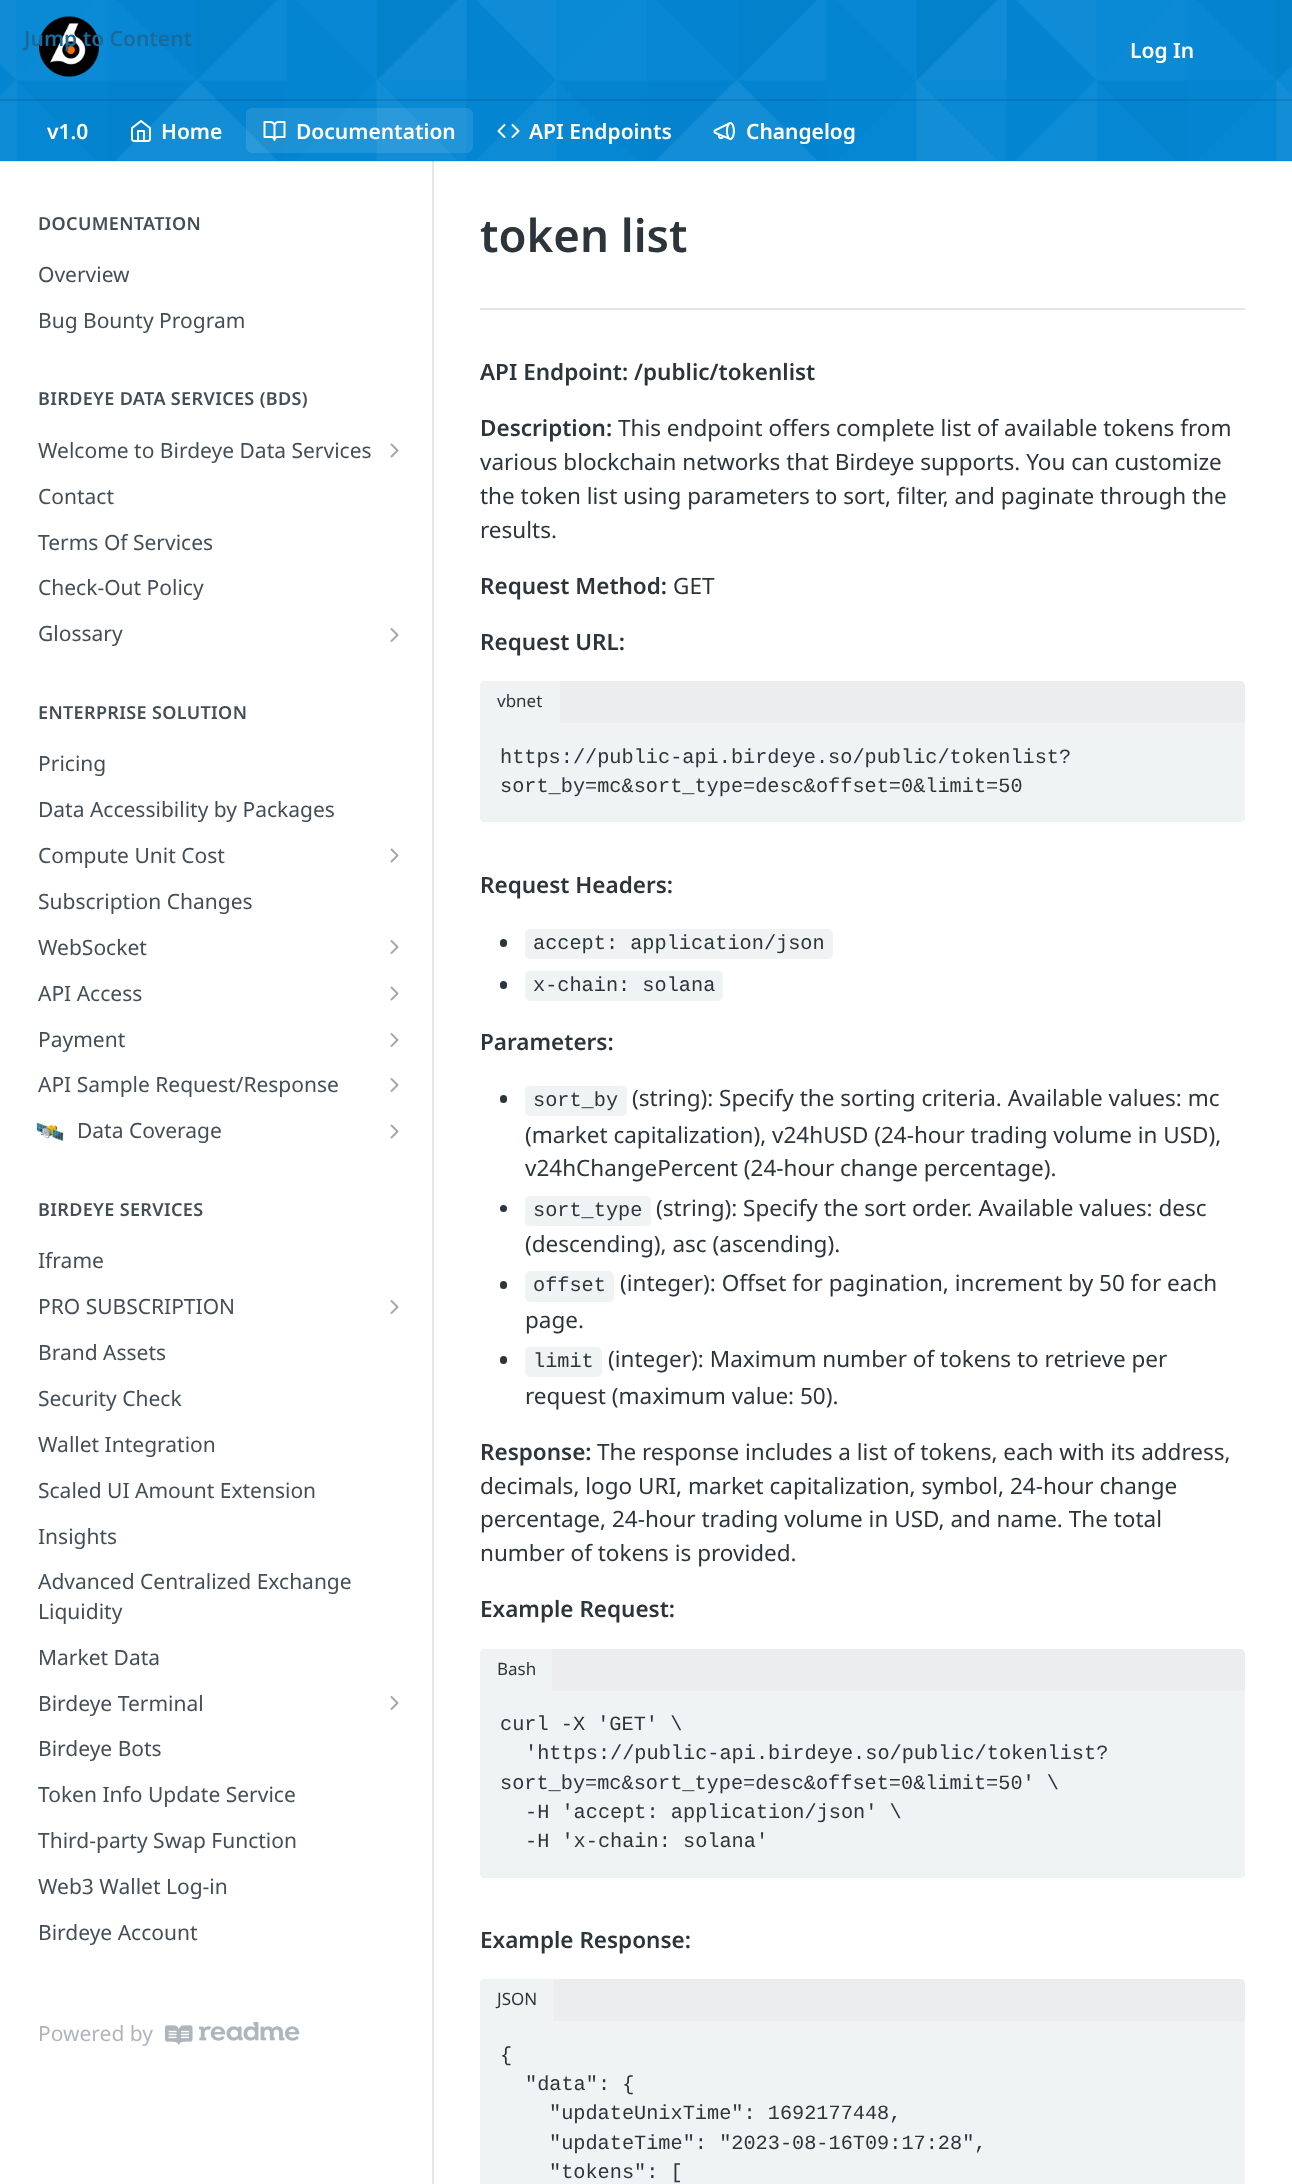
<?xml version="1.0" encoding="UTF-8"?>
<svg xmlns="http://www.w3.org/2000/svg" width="1292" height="2184">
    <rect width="100%" height="100%" fill="#FFFFFF"/>
    <path d="M 2 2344 V 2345 H 434 V 161 H 432 V 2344 Z" fill="#E6E6E6"/>
    <rect x="0" y="161" width="1292" height="1" fill="#000000" fill-opacity="0.1"/>
    <rect x="0" y="0" width="1292" height="161" fill="#0587D4"/>
    <image x="0" y="0" width="1292" height="161" href="img_01.png"/>
    <rect x="0" y="99" width="1292" height="2" fill="#000000" fill-opacity="0.1"/>
    <image x="39" y="16" width="60" height="61" href="img_02.png"/>
    <text x="24" y="46" font-family="Noto Sans" font-size="21" font-weight="600" fill="#1A6B9B">Jump to Content</text>
    <text x="1130" y="58" font-family="Noto Sans" font-size="21" font-weight="600" fill="#FFFFFF">Log In</text>
    <text x="47" y="139" font-family="Noto Sans" font-size="21" font-weight="600" fill="#FFFFFF">v1.0</text>
    <image x="131" y="120" width="20" height="22" href="img_03.png"/>
    <text x="161" y="139" font-family="Noto Sans" font-size="21" font-weight="600" fill="#FFFFFF">Home</text>
    <rect x="246" y="108" width="227" height="45" rx="6" fill="#FFFFFF" fill-opacity="0.1"/>
    <image x="263" y="121" width="23" height="20" href="img_04.png"/>
    <text x="296" y="139" font-family="Noto Sans" font-size="21" font-weight="600" fill="#FFFFFF">Documentation</text>
    <image x="497" y="124" width="23" height="14" href="img_05.png"/>
    <text x="529" y="139" font-family="Noto Sans" font-size="21" font-weight="600" fill="#FFFFFF">API Endpoints</text>
    <image x="713" y="122" width="22" height="18" href="img_06.png"/>
    <text x="746" y="139" font-family="Noto Sans" font-size="21" font-weight="600" fill="#FFFFFF">Changelog</text>
    <text x="38" y="230" font-family="Noto Sans" font-size="18" font-weight="600" letter-spacing="0.35" fill="#434E56">DOCUMENTATION</text>
    <text x="38" y="282" font-family="Noto Sans" font-size="21" fill="#434E56">Overview</text>
    <text x="38" y="328" font-family="Noto Sans" font-size="21" fill="#434E56">Bug Bounty Program</text>
    <text x="38" y="405" font-family="Noto Sans" font-size="18" font-weight="600" letter-spacing="0.35" fill="#434E56">BIRDEYE DATA SERVICES (BDS)</text>
    <text x="38" y="458" font-family="Noto Sans" font-size="21" fill="#434E56">Welcome to Birdeye Data Services</text>
    <image x="390" y="443" width="9" height="15" href="img_07.png"/>
    <text x="38" y="504" font-family="Noto Sans" font-size="21" fill="#434E56">Contact</text>
    <text x="38" y="550" font-family="Noto Sans" font-size="21" fill="#434E56">Terms Of Services</text>
    <text x="38" y="595" font-family="Noto Sans" font-size="21" fill="#434E56">Check-Out Policy</text>
    <text x="38" y="641" font-family="Noto Sans" font-size="21" fill="#434E56">Glossary</text>
    <image x="390" y="628" width="9" height="14" href="img_08.png"/>
    <text x="38" y="719" font-family="Noto Sans" font-size="18" font-weight="600" letter-spacing="0.35" fill="#434E56">ENTERPRISE SOLUTION</text>
    <text x="38" y="771" font-family="Noto Sans" font-size="21" fill="#434E56">Pricing</text>
    <text x="38" y="817" font-family="Noto Sans" font-size="21" fill="#434E56">Data Accessibility by Packages</text>
    <text x="38" y="863" font-family="Noto Sans" font-size="21" fill="#434E56">Compute Unit Cost</text>
    <image x="390" y="848" width="9" height="15" href="img_07.png"/>
    <text x="38" y="909" font-family="Noto Sans" font-size="21" fill="#434E56">Subscription Changes</text>
    <text x="38" y="955" font-family="Noto Sans" font-size="21" fill="#434E56">WebSocket</text>
    <image x="390" y="940" width="9" height="14" href="img_08.png"/>
    <text x="38" y="1001" font-family="Noto Sans" font-size="21" fill="#434E56">API Access</text>
    <image x="390" y="986" width="9" height="15" href="img_07.png"/>
    <text x="38" y="1047" font-family="Noto Sans" font-size="21" fill="#434E56">Payment</text>
    <image x="390" y="1033" width="9" height="14" href="img_08.png"/>
    <text x="38" y="1092" font-family="Noto Sans" font-size="21" fill="#434E56">API Sample Request/Response</text>
    <image x="390" y="1078" width="9" height="14" href="img_08.png"/>
    <text x="35" y="1140" font-family="Noto Color Emoji" font-size="24" fill="#A1A7AB">🛰️</text>
    <text x="77" y="1138" font-family="Noto Sans" font-size="21" fill="#434E56">Data Coverage</text>
    <image x="390" y="1124" width="9" height="15" href="img_07.png"/>
    <text x="38" y="1216" font-family="Noto Sans" font-size="18" font-weight="600" letter-spacing="0.35" fill="#434E56">BIRDEYE SERVICES</text>
    <text x="38" y="1268" font-family="Noto Sans" font-size="21" fill="#434E56">Iframe</text>
    <text x="38" y="1314" font-family="Noto Sans" font-size="21" fill="#434E56">PRO SUBSCRIPTION</text>
    <image x="390" y="1300" width="9" height="14" href="img_08.png"/>
    <text x="38" y="1360" font-family="Noto Sans" font-size="21" fill="#434E56">Brand Assets</text>
    <text x="38" y="1406" font-family="Noto Sans" font-size="21" fill="#434E56">Security Check</text>
    <text x="38" y="1452" font-family="Noto Sans" font-size="21" fill="#434E56">Wallet Integration</text>
    <text x="38" y="1498" font-family="Noto Sans" font-size="21" fill="#434E56">Scaled UI Amount Extension</text>
    <text x="38" y="1544" font-family="Noto Sans" font-size="21" fill="#434E56">Insights</text>
    <text font-family="Noto Sans" font-size="21" fill="#434E56">
        <tspan x="38" y="1589">Advanced Centralized Exchange</tspan>
        <tspan x="38" y="1619">Liquidity</tspan>
    </text>
    <text x="38" y="1665" font-family="Noto Sans" font-size="21" fill="#434E56">Market Data</text>
    <text x="38" y="1711" font-family="Noto Sans" font-size="21" fill="#434E56">Birdeye Terminal</text>
    <image x="390" y="1696" width="9" height="14" href="img_08.png"/>
    <text x="38" y="1756" font-family="Noto Sans" font-size="21" fill="#434E56">Birdeye Bots</text>
    <text x="38" y="1802" font-family="Noto Sans" font-size="21" fill="#434E56">Token Info Update Service</text>
    <text x="38" y="1848" font-family="Noto Sans" font-size="21" fill="#434E56">Third-party Swap Function</text>
    <text x="38" y="1894" font-family="Noto Sans" font-size="21" fill="#434E56">Web3 Wallet Log-in</text>
    <text x="38" y="1940" font-family="Noto Sans" font-size="21" fill="#434E56">Birdeye Account</text>
    <text x="38" y="2041" font-family="Noto Sans" font-size="21" fill="#AEB6BC">Powered by</text>
    <image x="165" y="2022" width="135" height="23" href="img_09.png"/>
    <rect x="480" y="308" width="765" height="2" fill="#E6E6E6"/>
    <text x="480" y="252" font-family="Noto Sans" font-size="45.5" font-weight="600" fill="#2B353B">token list</text>
    <text x="480" y="380" font-family="Noto Sans" font-size="22.5" font-weight="600" fill="#2B353B">API Endpoint: /public/tokenlist</text>
    <text x="480" y="436" font-family="Noto Sans" font-size="22.5" font-weight="600" fill="#2B353B">Description:</text>
    <text x="618" y="436" font-family="Noto Sans" font-size="22.5" fill="#2B353B">This endpoint offers complete list of available tokens from</text>
    <text font-family="Noto Sans" font-size="22.5" fill="#2B353B">
        <tspan x="480" y="470">various blockchain networks that Birdeye supports. You can customize</tspan>
        <tspan x="480" y="504">the token list using parameters to sort, filter, and paginate through the</tspan>
        <tspan x="480" y="538">results.</tspan>
    </text>
    <text x="480" y="594" font-family="Noto Sans" font-size="22.5" font-weight="600" fill="#2B353B">Request Method:</text>
    <text x="673" y="594" font-family="Noto Sans" font-size="22.5" fill="#2B353B">GET</text>
    <text x="480" y="650" font-family="Noto Sans" font-size="22.5" font-weight="600" fill="#2B353B">Request URL:</text>
    <path d="M 485 681 H 1240 C 1243 681 1245 683 1245 686 V 723 H 480 V 686 C 480 683 482 681 485 681 Z" fill="#EBEDEF"/>
    <path d="M 485 681 H 560 V 723 H 480 V 686 C 480 683 482 681 485 681 Z" fill="#F0F3F4"/>
    <text x="497" y="707" font-family="Noto Sans" font-size="17" fill="#2B353B">vbnet</text>
    <path d="M 480 723 H 1245 V 817 C 1245 820 1243 822 1240 822 H 485 C 482 822 480 820 480 817 Z" fill="#F0F3F4"/>
    <rect x="480" y="723" width="765" height="99" rx="5" fill="#F0F3F4"/>
    <text font-family="Liberation Mono" font-size="20.25" fill="#2B353B">
        <tspan x="500" y="763">https://public-api.birdeye.so/public/tokenlist?</tspan>
        <tspan x="500" y="792">sort_by=mc&amp;sort_type=desc&amp;offset=0&amp;limit=50</tspan>
    </text>
    <text x="480" y="893" font-family="Noto Sans" font-size="22.5" font-weight="600" fill="#2B353B">Request Headers:</text>
    <rect x="500" y="939" width="7" height="8" rx="3.5" fill="#2B353B"/>
    <rect x="525" y="929" width="308" height="30" rx="5" fill="#F0F3F4"/>
    <text x="533" y="949" font-family="Liberation Mono" font-size="20.25" fill="#2B353B">accept: application/json</text>
    <rect x="500" y="981" width="7" height="8" rx="3.5" fill="#2B353B"/>
    <rect x="525" y="971" width="198" height="30" rx="5" fill="#F0F3F4"/>
    <text x="533" y="991" font-family="Liberation Mono" font-size="20.25" fill="#2B353B">x-chain: solana</text>
    <text x="480" y="1050" font-family="Noto Sans" font-size="22.5" font-weight="600" fill="#2B353B">Parameters:</text>
    <rect x="500" y="1095" width="7" height="8" rx="3.5" fill="#2B353B"/>
    <rect x="525" y="1086" width="102" height="30" rx="5" fill="#F0F3F4"/>
    <text x="533" y="1106" font-family="Liberation Mono" font-size="20.25" fill="#2B353B">sort_by</text>
    <text x="632" y="1106" font-family="Noto Sans" font-size="22.5" fill="#2B353B">(string): Specify the sorting criteria. Available values: mc</text>
    <text font-family="Noto Sans" font-size="22.5" fill="#2B353B">
        <tspan x="525" y="1143">(market capitalization), v24hUSD (24-hour trading volume in USD),</tspan>
        <tspan x="525" y="1176">v24hChangePercent (24-hour change percentage).</tspan>
    </text>
    <circle cx="503.5" cy="1208.5" r="3.5" fill="#2B353B"/>
    <rect x="525" y="1196" width="126" height="30" rx="5" fill="#F0F3F4"/>
    <text x="533" y="1216" font-family="Liberation Mono" font-size="20.25" fill="#2B353B">sort_type</text>
    <text x="656" y="1216" font-family="Noto Sans" font-size="22.5" fill="#2B353B">(string): Specify the sort order. Available values: desc</text>
    <text x="525" y="1252" font-family="Noto Sans" font-size="22.5" fill="#2B353B">(descending), asc (ascending).</text>
    <rect x="500" y="1281" width="7" height="8" rx="3.5" fill="#2B353B"/>
    <rect x="525" y="1271" width="89" height="31" rx="5" fill="#F0F3F4"/>
    <text x="533" y="1291" font-family="Liberation Mono" font-size="20.25" fill="#2B353B">offset</text>
    <text x="620" y="1291" font-family="Noto Sans" font-size="22.5" fill="#2B353B">(integer): Offset for pagination, increment by 50 for each</text>
    <text x="525" y="1328" font-family="Noto Sans" font-size="22.5" fill="#2B353B">page.</text>
    <rect x="500" y="1356" width="7" height="8" rx="3.5" fill="#2B353B"/>
    <rect x="525" y="1347" width="77" height="30" rx="5" fill="#F0F3F4"/>
    <text x="533" y="1367" font-family="Liberation Mono" font-size="20.25" fill="#2B353B">limit</text>
    <text x="608" y="1367" font-family="Noto Sans" font-size="22.5" fill="#2B353B">(integer): Maximum number of tokens to retrieve per</text>
    <text x="525" y="1404" font-family="Noto Sans" font-size="22.5" fill="#2B353B">request (maximum value: 50).</text>
    <text x="480" y="1460" font-family="Noto Sans" font-size="22.5" font-weight="600" fill="#2B353B">Response:</text>
    <text x="597" y="1460" font-family="Noto Sans" font-size="22.5" fill="#2B353B">The response includes a list of tokens, each with its address,</text>
    <text font-family="Noto Sans" font-size="22.5" fill="#2B353B">
        <tspan x="480" y="1494">decimals, logo URI, market capitalization, symbol, 24-hour change</tspan>
        <tspan x="480" y="1527">percentage, 24-hour trading volume in USD, and name. The total</tspan>
        <tspan x="480" y="1561">number of tokens is provided.</tspan>
    </text>
    <text x="480" y="1617" font-family="Noto Sans" font-size="22.5" font-weight="600" fill="#2B353B">Example Request:</text>
    <path d="M 485 1649 H 1240 C 1243 1649 1245 1651 1245 1654 V 1691 H 480 V 1654 C 480 1651 482 1649 485 1649 Z" fill="#EBEDEF"/>
    <path d="M 485 1649 H 552 V 1691 H 480 V 1654 C 480 1651 482 1649 485 1649 Z" fill="#F0F3F4"/>
    <text x="497" y="1675" font-family="Noto Sans" font-size="17" fill="#2B353B">Bash</text>
    <path d="M 480 1691 H 1245 V 1873 C 1245 1876 1243 1878 1240 1878 H 485 C 482 1878 480 1876 480 1873 Z" fill="#F0F3F4"/>
    <rect x="480" y="1691" width="765" height="187" rx="5" fill="#F0F3F4"/>
    <text x="500" y="1730" font-family="Liberation Mono" font-size="20.25" fill="#2B353B">curl -X 'GET' \</text>
    <text x="525" y="1759" font-family="Liberation Mono" font-size="20.25" fill="#2B353B">'https://public-api.birdeye.so/public/tokenlist?</text>
    <text x="500" y="1789" font-family="Liberation Mono" font-size="20.25" fill="#2B353B">sort_by=mc&amp;sort_type=desc&amp;offset=0&amp;limit=50' \</text>
    <text font-family="Liberation Mono" font-size="20.25" fill="#2B353B">
        <tspan x="525" y="1818">-H 'accept: application/json' \</tspan>
        <tspan x="525" y="1847">-H 'x-chain: solana'</tspan>
    </text>
    <text x="480" y="1948" font-family="Noto Sans" font-size="22.5" font-weight="600" fill="#2B353B">Example Response:</text>
    <path d="M 485 1979 H 1240 C 1243 1979 1245 1981 1245 1984 V 2021 H 480 V 1984 C 480 1981 482 1979 485 1979 Z" fill="#EBEDEF"/>
    <path d="M 485 1979 H 554 V 2021 H 480 V 1984 C 480 1981 482 1979 485 1979 Z" fill="#F0F3F4"/>
    <text x="497" y="2005" font-family="Noto Sans" font-size="17" fill="#2B353B">JSON</text>
    <rect x="480" y="2021" width="765" height="163" fill="#F0F3F4"/>
    <text x="500" y="2061" font-family="Liberation Mono" font-size="20.25" fill="#2B353B">{</text>
    <text x="525" y="2090" font-family="Liberation Mono" font-size="20.25" fill="#2B353B">"data": {</text>
    <text font-family="Liberation Mono" font-size="20.25" fill="#2B353B">
        <tspan x="549" y="2119">"updateUnixTime": 1692177448,</tspan>
        <tspan x="549" y="2149">"updateTime": "2023-08-16T09:17:28",</tspan>
        <tspan x="549" y="2178">"tokens": [</tspan>
    </text>
</svg>
